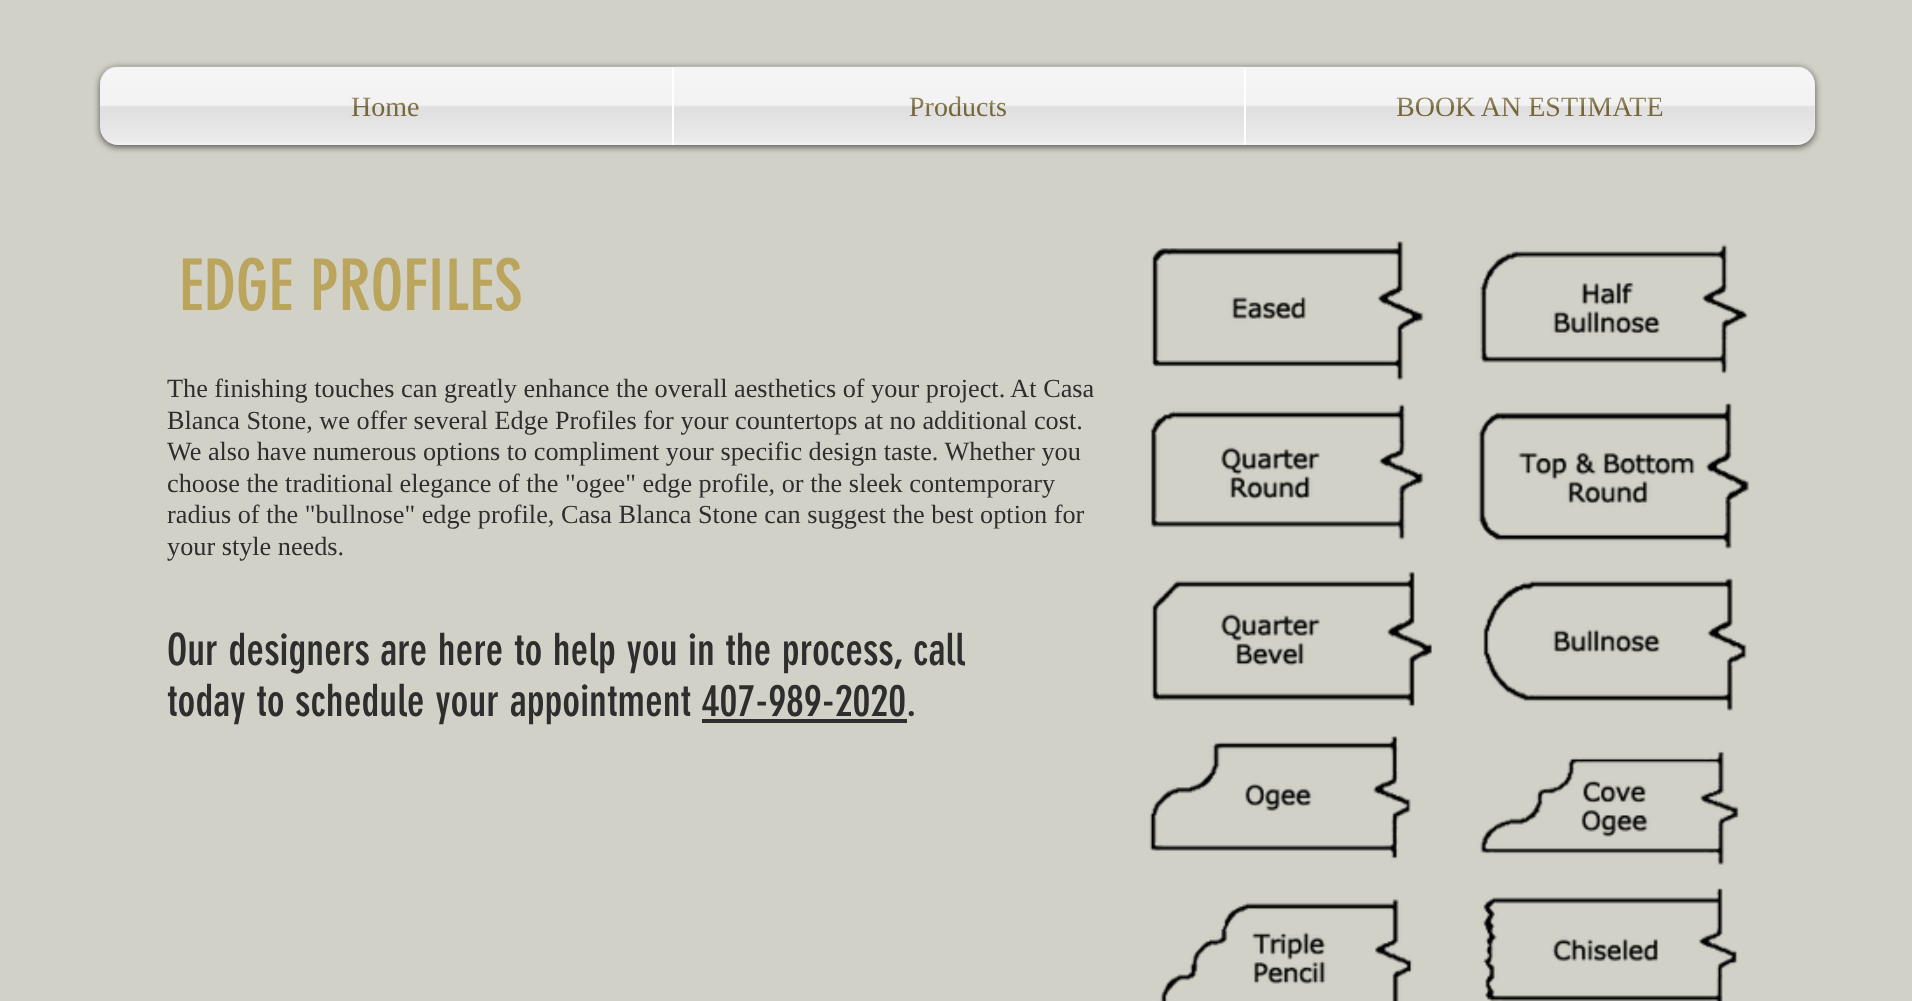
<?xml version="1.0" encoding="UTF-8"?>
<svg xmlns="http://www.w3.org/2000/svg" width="1912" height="1001">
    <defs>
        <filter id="blur1" x="-50%" y="-200%" width="200%" height="500%"><feGaussianBlur stdDeviation="3.5"/></filter>
    </defs>
    <rect width="100%" height="100%" fill="#D1D1C7"/>
    <rect x="100" y="68" width="1715" height="79" rx="18" fill="#000000" fill-opacity="0.6" filter="url(#blur1)"/>
    <image x="100" y="66" width="1715" height="75" href="img_01.png"/>
    <path d="M 118 67 H 672 V 145 H 118 C 108 145 100 137 100 127 V 85 C 100 75 108 67 118 67 Z" fill="#F1F1F1"/>
    <text x="351" y="116" font-family="Liberation Serif" font-size="28" fill="#7D6E3D">Home</text>
    <image x="100" y="66" width="572" height="76" href="img_02.png"/>
    <rect x="674" y="67" width="570" height="78" fill="#F1F1F1"/>
    <rect x="672" y="67" width="2" height="78" fill="#FFFFFF"/>
    <text x="909" y="116" font-family="Liberation Serif" font-size="28" fill="#7D6E3D">Products</text>
    <image x="674" y="66" width="570" height="76" href="img_03.png"/>
    <path d="M 1244 67 H 1797 C 1807 67 1815 75 1815 85 V 127 C 1815 137 1807 145 1797 145 H 1244 Z" fill="#F1F1F1"/>
    <rect x="1244" y="67" width="2" height="78" fill="#FFFFFF"/>
    <text x="1396" y="116" font-family="Liberation Serif" font-size="28" fill="#7D6E3D">BOOK AN ESTIMATE</text>
    <image x="1246" y="66" width="569" height="76" href="img_04.png"/>
    <text x="179" y="310" font-family="'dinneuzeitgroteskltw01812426'" font-size="70" fill="#BBA45B">EDGE PROFILES</text>
    <image x="1149" y="241" width="601" height="760" href="img_05.png"/>
    <text font-family="Liberation Serif" font-size="26.25" fill="#2F2E2E">
        <tspan x="167" y="397">The finishing touches can greatly enhance the overall aesthetics of your project. At Casa</tspan>
        <tspan x="167" y="429">Blanca Stone, we offer several Edge Profiles for your countertops at no additional cost.</tspan>
        <tspan x="167" y="460">We also have numerous options to compliment your specific design taste. Whether you</tspan>
        <tspan x="167" y="492">choose the traditional elegance of the "ogee" edge profile, or the sleek contemporary</tspan>
        <tspan x="167" y="523">radius of the "bullnose" edge profile, Casa Blanca Stone can suggest the best option for</tspan>
        <tspan x="167" y="555">your style needs.</tspan>
    </text>
    <text font-family="'dinneuzeitgroteskltw01812426'" font-size="43.75" fill="#2F2E2E">
        <tspan x="167" y="665">Our designers are here to help you in the process, call</tspan>
        <tspan x="167" y="716">today to schedule your appointment 407-989-2020.</tspan>
    </text>
    <rect x="702" y="719" width="205" height="4" fill="#2F2E2E"/>
</svg>
